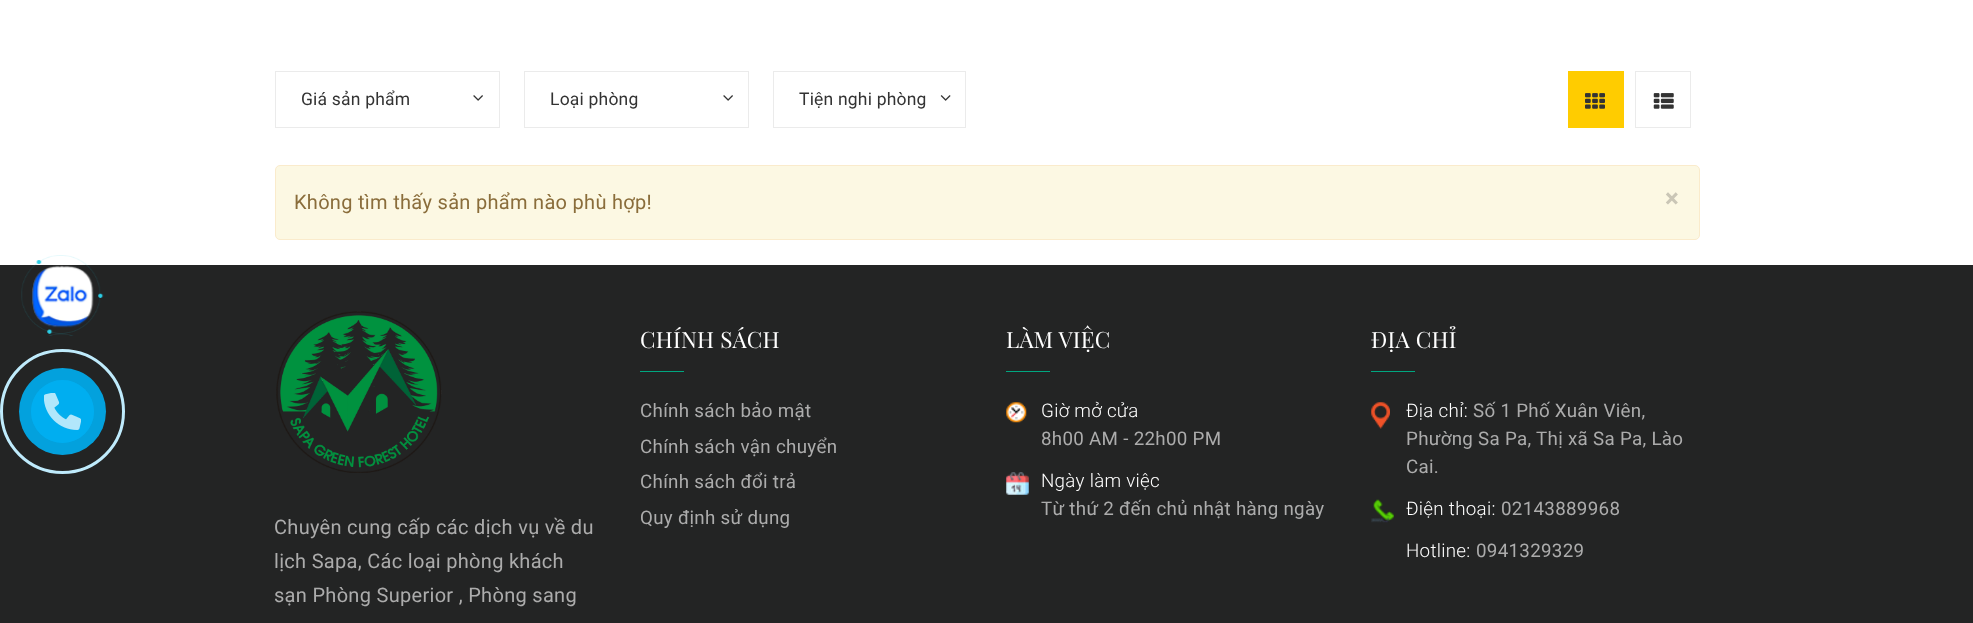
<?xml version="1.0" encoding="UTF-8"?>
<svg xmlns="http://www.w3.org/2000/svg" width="1973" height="623">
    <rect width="100%" height="100%" fill="#FFFFFF"/>
    <rect x="275.5" y="71.5" width="224" height="56" fill="none" stroke="#EBEBEB"/>
    <text x="301" y="105" font-family="Roboto" font-size="17.5" letter-spacing="0.2" fill="#333333">Giá sản phẩm</text>
    <image x="473" y="95" width="10" height="6" href="img_01.png"/>
    <rect x="524.5" y="71.5" width="224" height="56" fill="none" stroke="#EBEBEB"/>
    <text x="550" y="105" font-family="Roboto" font-size="17.5" letter-spacing="0.2" fill="#333333">Loại phòng</text>
    <image x="723" y="95" width="10" height="6" href="img_01.png"/>
    <rect x="773.5" y="71.5" width="192" height="56" fill="none" stroke="#EBEBEB"/>
    <text x="799" y="105" font-family="Roboto" font-size="17.5" letter-spacing="0.2" fill="#333333">Tiện nghi phòng</text>
    <image x="940" y="95" width="11" height="6" href="img_02.png"/>
    <rect x="1568" y="71" width="56" height="57" fill="#FFCC00"/>
    <image x="1585" y="93" width="20" height="16" href="img_03.png"/>
    <rect x="1635.5" y="71.5" width="55" height="56" fill="none" stroke="#EBEBEB"/>
    <image x="1653" y="93" width="21" height="16" href="img_04.png"/>
    <rect x="275.5" y="165.5" width="1424" height="74" rx="4.5" fill="#FCF8E3" stroke="#FAEBCC"/>
    <text x="294" y="209" font-family="Roboto" font-size="20" letter-spacing="0.3" fill="#8A6D3B">Không tìm thấy sản phẩm nào phù hợp!</text>
    <text x="1665" y="207" font-family="Roboto" font-size="26" font-weight="700" letter-spacing="0.3" fill="#CAC6B6">×</text>
    <rect x="0" y="265" width="1973" height="358" fill="#232424"/>
    <image x="21" y="255" width="83" height="81" href="img_05.png"/>
    <image x="32" y="265" width="62" height="63" href="img_06.png"/>
    <circle cx="62.5" cy="411.5" r="31.5" fill="#0B85B4"/>
    <image x="55" y="404" width="15" height="15" href="img_08.png"/>
    <circle cx="62.5" cy="411.5" r="61" fill="none" stroke="#BFEBFC" stroke-width="3"/>
    <circle cx="62.5" cy="411.5" r="43.5" fill="#00AFF2" fill-opacity="0.9"/>
    <circle cx="62.5" cy="411.5" r="31.5" fill="#00AFF2" fill-opacity="0.7"/>
    <image x="44" y="393" width="37" height="37" href="img_07.png"/>
    <image x="276" y="311" width="166" height="162" href="img_09.png"/>
    <text font-family="Roboto" font-size="20" letter-spacing="0.3" fill="#ACACAC">
        <tspan x="274" y="534">Chuyên cung cấp các dịch vụ về du</tspan>
        <tspan x="274" y="568">lịch Sapa, Các loại phòng khách</tspan>
        <tspan x="274" y="602">sạn Phòng Superior , Phòng sang</tspan>
    </text>
    <text x="640" y="348" font-family="Playfair Display" font-size="22.5" letter-spacing="0.25" fill="#FFFFFF">CHÍNH SÁCH</text>
    <rect x="640" y="371" width="44" height="1" fill="#00A680"/>
    <text font-family="Roboto" font-size="18.75" letter-spacing="0.3" fill="#ACACAC">
        <tspan x="640" y="417">Chính sách bảo mật</tspan>
        <tspan x="640" y="453">Chính sách vận chuyển</tspan>
        <tspan x="640" y="488">Chính sách đổi trả</tspan>
        <tspan x="640" y="524">Quy định sử dụng</tspan>
    </text>
    <text x="1006" y="348" font-family="Playfair Display" font-size="22.5" letter-spacing="0.25" fill="#FFFFFF">LÀM VIỆC</text>
    <rect x="1006" y="371" width="44" height="1" fill="#00A680"/>
    <image x="1006" y="402" width="21" height="21" href="img_10.png"/>
    <text x="1041" y="417" font-family="Roboto" font-size="18.75" font-weight="300" letter-spacing="0.3" fill="#FFFFFF">Giờ mở cửa</text>
    <text x="1041" y="445" font-family="Roboto" font-size="18.75" letter-spacing="0.3" fill="#ACACAC">8h00 AM - 22h00 PM</text>
    <image x="1006" y="472" width="23" height="23" href="img_11.png"/>
    <text x="1041" y="487" font-family="Roboto" font-size="18.75" font-weight="300" letter-spacing="0.3" fill="#FFFFFF">Ngày làm việc</text>
    <text x="1041" y="515" font-family="Roboto" font-size="18.75" letter-spacing="0.3" fill="#ACACAC">Từ thứ 2 đến chủ nhật hàng ngày</text>
    <text x="1371" y="348" font-family="Playfair Display" font-size="22.5" letter-spacing="0.25" fill="#FFFFFF">ĐỊA CHỈ</text>
    <rect x="1371" y="371" width="44" height="1" fill="#00A680"/>
    <image x="1371" y="402" width="19" height="27" href="img_12.png"/>
    <text x="1406" y="417" font-family="Roboto" font-size="18.75" font-weight="300" letter-spacing="0.3" fill="#FFFFFF">Địa chỉ:</text>
    <text x="1473" y="417" font-family="Roboto" font-size="18.75" letter-spacing="0.3" fill="#ACACAC">Số 1 Phố Xuân Viên,</text>
    <text font-family="Roboto" font-size="18.75" letter-spacing="0.3" fill="#ACACAC">
        <tspan x="1406" y="445">Phường Sa Pa, Thị xã Sa Pa, Lào</tspan>
        <tspan x="1406" y="473">Cai.</tspan>
    </text>
    <image x="1371" y="499" width="23" height="24" href="img_13.png"/>
    <text x="1406" y="515" font-family="Roboto" font-size="18.75" font-weight="300" letter-spacing="0.3" fill="#FFFFFF">Điện thoại:</text>
    <text x="1501" y="515" font-family="Roboto" font-size="18.75" letter-spacing="0.3" fill="#ACACAC">02143889968</text>
    <text x="1406" y="557" font-family="Roboto" font-size="18.75" font-weight="300" letter-spacing="0.3" fill="#FFFFFF">Hotline:</text>
    <text x="1476" y="557" font-family="Roboto" font-size="18.75" letter-spacing="0.3" fill="#ACACAC">0941329329</text>
</svg>
